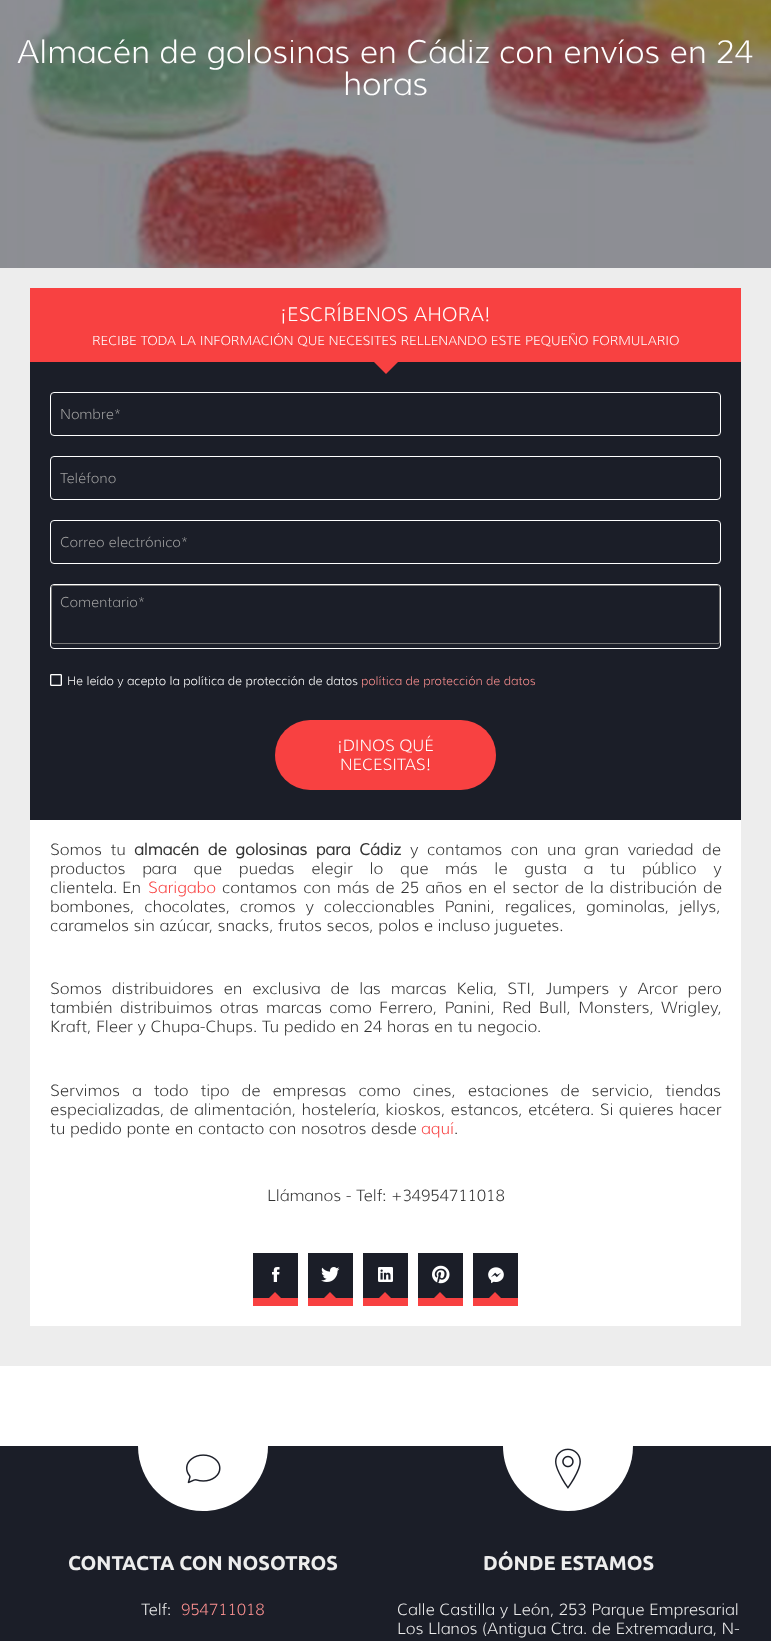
<?xml version="1.0" encoding="UTF-8"?>
<svg xmlns="http://www.w3.org/2000/svg" width="771" height="1641">
    <rect width="100%" height="100%" fill="#FFFFFF"/>
    <rect x="0" y="268" width="771" height="1098" fill="#EDEDED"/>
    <image x="0" y="0" width="771" height="268" href="img_01.png"/>
    <text x="17" y="63" font-family="Muli" font-size="32" font-weight="300" fill="#FFFFFF">Almacén de golosinas en Cádiz con envíos en 24</text>
    <text x="343" y="95" font-family="Muli" font-size="32" font-weight="300" fill="#FFFFFF">horas</text>
    <rect x="30" y="288" width="711" height="74" fill="#F84141"/>
    <text x="280" y="321" font-family="Muli" font-size="19.25" font-weight="300" fill="#FFFFFF">¡ESCRÍBENOS AHORA!</text>
    <text x="92" y="345" font-family="Muli" font-size="12.8" font-weight="300" fill="#FFFFFF">RECIBE TODA LA INFORMACIÓN QUE NECESITES RELLENANDO ESTE PEQUEÑO FORMULARIO</text>
    <rect x="30" y="362" width="711" height="458" fill="#1B1E28"/>
    <path d="M 374 362 H 398 L 386 374 Z" fill="#F84141"/>
    <rect x="50.5" y="392.5" width="670" height="43" rx="3.5" fill="none" stroke="#FFFFFF"/>
    <text x="60" y="419" font-family="Muli" font-size="14" font-weight="300" fill="#9E9E9E">Nombre*</text>
    <rect x="50.5" y="456.5" width="670" height="43" rx="3.5" fill="none" stroke="#FFFFFF"/>
    <text x="60" y="483" font-family="Muli" font-size="14" font-weight="300" fill="#9E9E9E">Teléfono</text>
    <rect x="50.5" y="520.5" width="670" height="43" rx="3.5" fill="none" stroke="#FFFFFF"/>
    <text x="60" y="547" font-family="Muli" font-size="14" font-weight="300" fill="#9E9E9E">Correo electrónico*</text>
    <rect x="50.5" y="584.5" width="670" height="64" rx="3.5" fill="none" stroke="#FFFFFF"/>
    <rect x="51.5" y="585.5" width="668" height="58" rx="1.5" fill="none" stroke="#767676"/>
    <text x="60" y="607" font-family="Muli" font-size="14" font-weight="300" fill="#9E9E9E">Comentario*</text>
    <image x="50" y="674" width="12" height="12" href="img_02.png"/>
    <text x="67" y="685" font-family="Muli" font-size="12" font-weight="300" fill="#FFFFFF">He leído y acepto la política de protección de datos</text>
    <text x="361" y="685" font-family="Muli" font-size="12" font-weight="300" fill="#FB9090">política de protección de datos</text>
    <rect x="275" y="720" width="221" height="70" rx="35" fill="#F84141"/>
    <text x="337" y="751" font-family="Muli" font-size="16" font-weight="300" fill="#FFFFFF">¡DINOS QUÉ</text>
    <text x="340" y="770" font-family="Muli" font-size="16" font-weight="300" fill="#FFFFFF">NECESITAS!</text>
    <rect x="30" y="820" width="711" height="506" fill="#FFFFFF"/>
    <text x="50" y="855" word-spacing="4" font-family="Muli" font-size="16" font-weight="300" fill="#333333">Somos tu</text>
    <text x="134" y="855" word-spacing="4" font-family="Muli" font-size="16" font-weight="700" fill="#333333">almacén de golosinas para Cádiz</text>
    <text x="410" y="855" word-spacing="4" font-family="Muli" font-size="16" font-weight="300" fill="#333333">y contamos con una gran variedad de</text>
    <text font-family="Muli" font-size="16" font-weight="300" fill="#333333">
        <tspan x="50" y="874" word-spacing="12.1">productos para que puedas elegir lo que más le gusta a tu público y</tspan>
        <tspan x="50" y="893">clientela. En</tspan>
    </text>
    <text x="148" y="893" font-family="Muli" font-size="16" font-weight="300" fill="#F84141">Sarigabo</text>
    <text x="222" y="893" word-spacing="1.5" font-family="Muli" font-size="16" font-weight="300" fill="#333333">contamos con más de 25 años en el sector de la distribución de</text>
    <text font-family="Muli" font-size="16" font-weight="300" fill="#333333">
        <tspan x="50" y="912" word-spacing="5.25">bombones, chocolates, cromos y coleccionables Panini, regalices, gominolas, jellys,</tspan>
        <tspan x="50" y="931">caramelos sin azúcar, snacks, frutos secos, polos e incluso juguetes.</tspan>
    </text>
    <text font-family="Muli" font-size="16" font-weight="300" fill="#333333">
        <tspan x="50" y="994" word-spacing="5.25">Somos distribuidores en exclusiva de las marcas Kelia, STI, Jumpers y Arcor pero</tspan>
        <tspan x="50" y="1013" word-spacing="2.75">también distribuimos otras marcas como Ferrero, Panini, Red Bull, Monsters, Wrigley,</tspan>
        <tspan x="50" y="1032">Kraft, Fleer y Chupa-Chups. Tu pedido en 24 horas en tu negocio.</tspan>
    </text>
    <text font-family="Muli" font-size="16" font-weight="300" fill="#333333">
        <tspan x="50" y="1096" word-spacing="7.4">Servimos a todo tipo de empresas como cines, estaciones de servicio, tiendas</tspan>
        <tspan x="50" y="1115" word-spacing="0.75">especializadas, de alimentación, hostelería, kioskos, estancos, etcétera. Si quieres hacer</tspan>
        <tspan x="50" y="1134">tu pedido ponte en contacto con nosotros desde</tspan>
    </text>
    <text x="421" y="1134" font-family="Muli" font-size="16" font-weight="300" fill="#F84141">aquí</text>
    <text x="454" y="1134" font-family="Muli" font-size="16" font-weight="300" fill="#333333">.</text>
    <text x="267" y="1201" font-family="Muli" font-size="16" font-weight="300" fill="#333333">Llámanos - Telf: +34954711018</text>
    <rect x="253" y="1253" width="45" height="45" fill="#1B1E28"/>
    <image x="272" y="1267" width="8" height="15" href="img_03.png"/>
    <path d="M 281 1298 H 269 L 275 1292 Z" fill="#F84141"/>
    <rect x="253" y="1298" width="45" height="8" fill="#F84141"/>
    <rect x="308" y="1253" width="45" height="45" fill="#1B1E28"/>
    <image x="321" y="1267" width="19" height="15" href="img_04.png"/>
    <path d="M 336 1298 H 324 L 330 1292 Z" fill="#F84141"/>
    <rect x="308" y="1298" width="45" height="8" fill="#F84141"/>
    <rect x="363" y="1253" width="45" height="45" fill="#1B1E28"/>
    <image x="378" y="1267" width="15" height="15" href="img_05.png"/>
    <path d="M 391 1298 H 379 L 385 1292 Z" fill="#F84141"/>
    <rect x="363" y="1298" width="45" height="8" fill="#F84141"/>
    <rect x="418" y="1253" width="45" height="45" fill="#1B1E28"/>
    <image x="432" y="1265" width="18" height="19" href="img_06.png"/>
    <path d="M 446 1298 H 434 L 440 1292 Z" fill="#F84141"/>
    <rect x="418" y="1298" width="45" height="8" fill="#F84141"/>
    <rect x="473" y="1253" width="45" height="45" fill="#1B1E28"/>
    <image x="488" y="1267" width="16" height="17" href="img_07.png"/>
    <path d="M 501 1298 H 489 L 495 1292 Z" fill="#F84141"/>
    <rect x="473" y="1298" width="45" height="8" fill="#F84141"/>
    <rect x="0" y="1446" width="771" height="195" fill="#1B1E28"/>
    <path d="M 138 1446 H 268 C 268 1482 239 1511 203 1511 C 167 1511 138 1482 138 1446 Z" fill="#FFFFFF"/>
    <image x="186" y="1454" width="35" height="30" href="img_08.png"/>
    <text x="68" y="1570" font-family="Ubuntu" font-size="20" font-weight="700" fill="#EDEDED">CONTACTA CON NOSOTROS</text>
    <text x="141" y="1615" font-family="Muli" font-size="16" font-weight="300" fill="#EDEDED">Telf:</text>
    <text x="181" y="1615" font-family="Muli" font-size="16" font-weight="300" fill="#FB9090">954711018</text>
    <path d="M 503 1446 H 633 C 633 1482 604 1511 568 1511 C 532 1511 503 1482 503 1446 Z" fill="#FFFFFF"/>
    <image x="555" y="1448" width="26" height="41" href="img_09.png"/>
    <text x="483" y="1570" font-family="Ubuntu" font-size="20" font-weight="700" fill="#EDEDED">DÓNDE ESTAMOS</text>
    <text font-family="Muli" font-size="16" font-weight="300" fill="#EDEDED">
        <tspan x="397" y="1615">Calle Castilla y León, 253 Parque Empresarial</tspan>
        <tspan x="397" y="1634">Los Llanos (Antigua Ctra. de Extremadura, N-</tspan>
    </text>
</svg>
